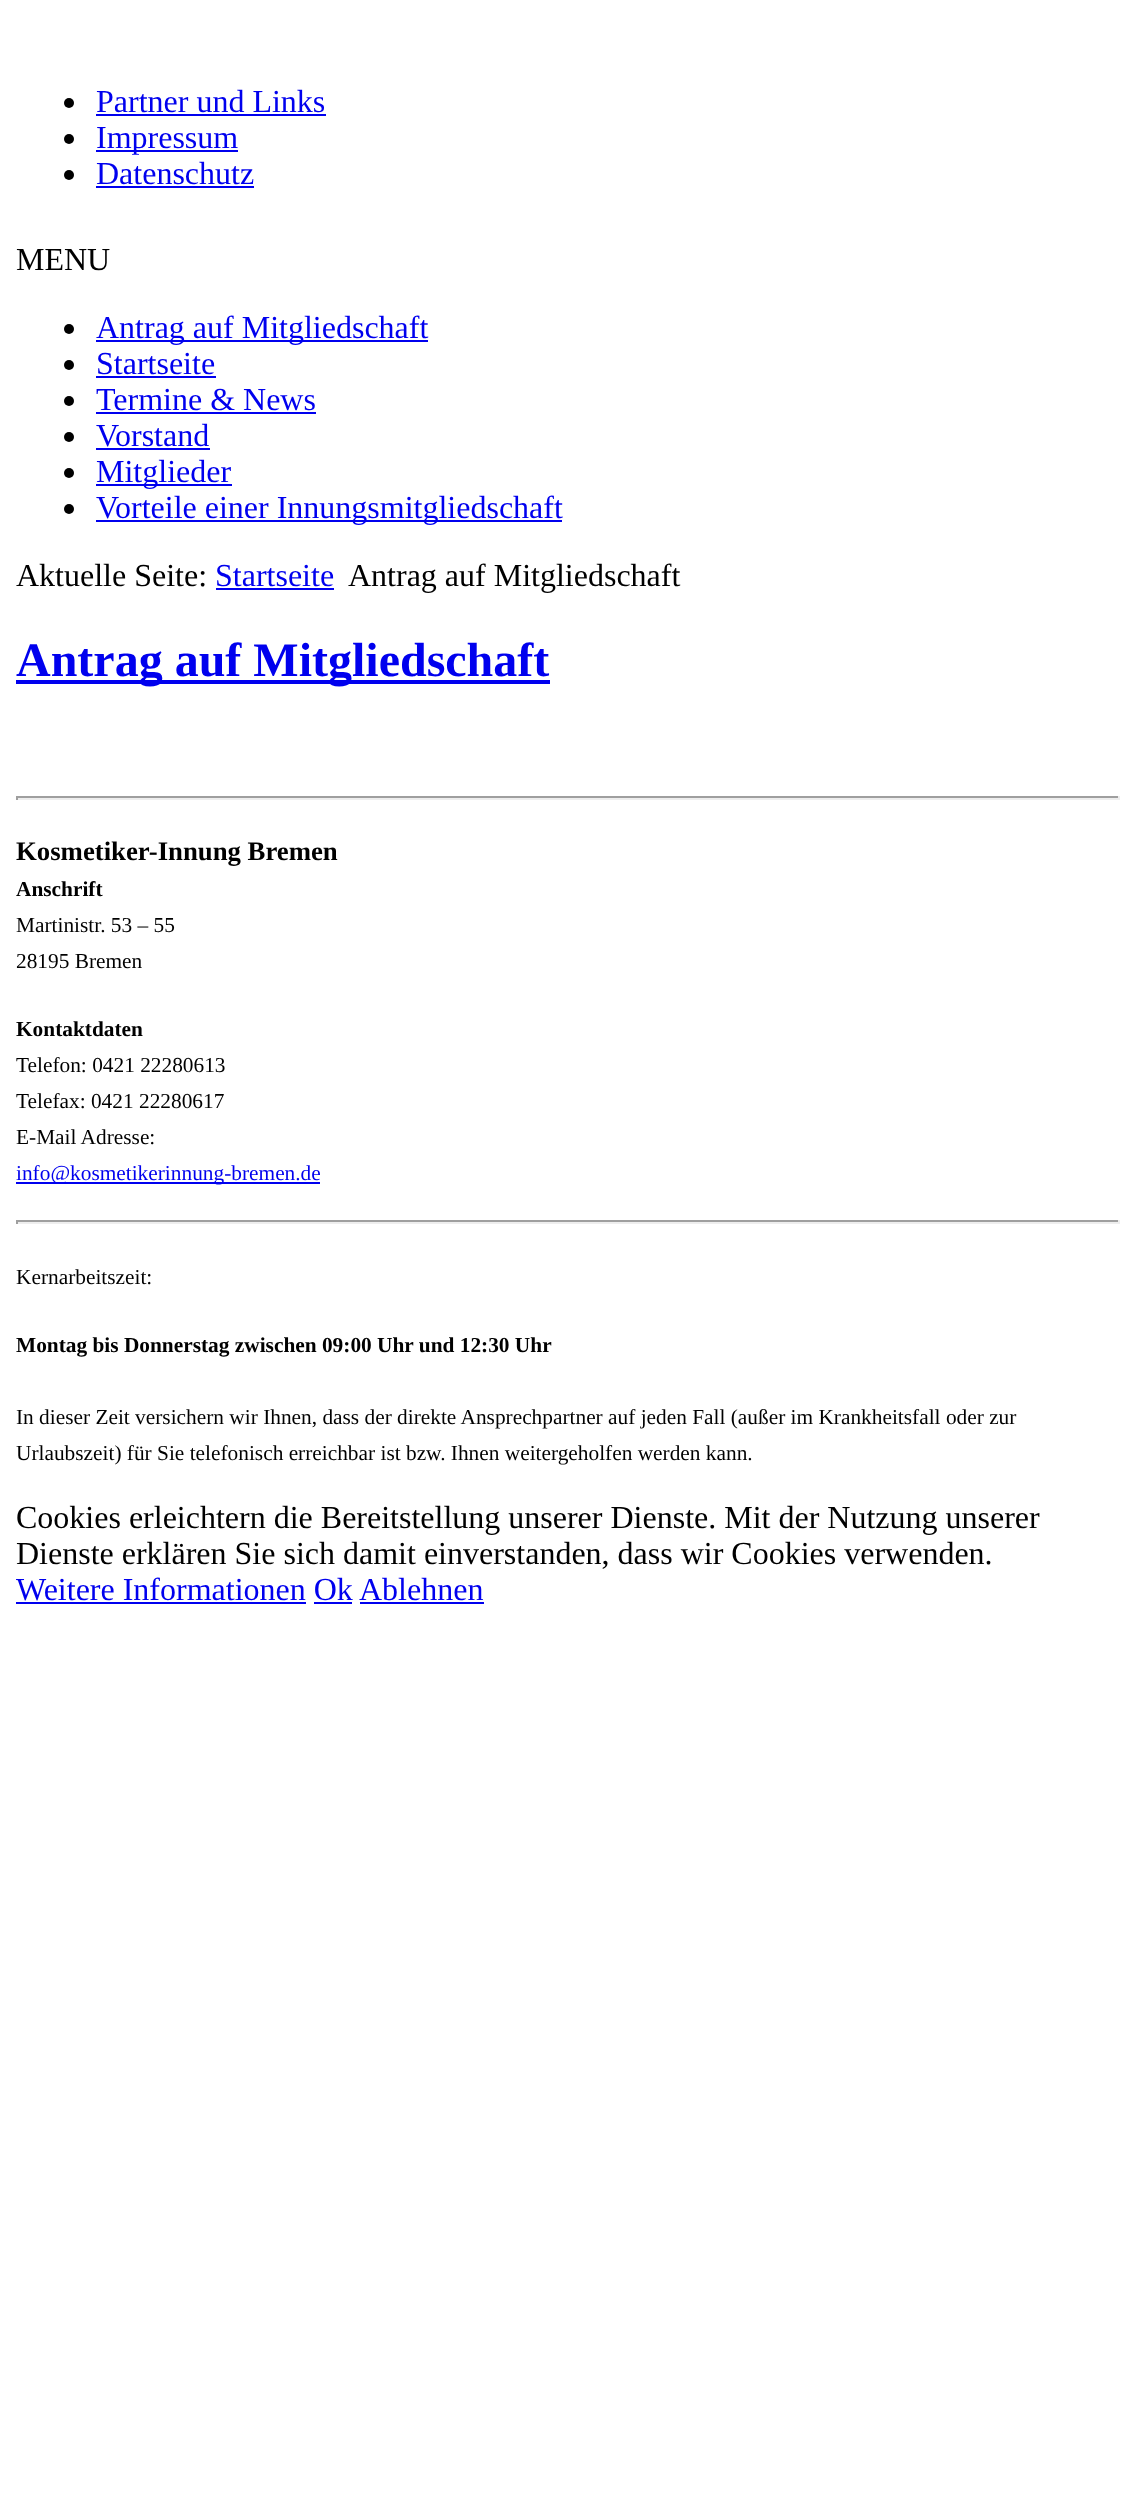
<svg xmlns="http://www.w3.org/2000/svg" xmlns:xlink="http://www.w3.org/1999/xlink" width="1135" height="2506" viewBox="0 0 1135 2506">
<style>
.cls-1{font:32px Liberation Serif;fill:#0000ee}
.cls-2{font:32px Liberation Serif;fill:#000000}
.cls-3{font:bold 48px Liberation Serif;fill:#0000ee}
.cls-4{font:bold 26.75px Liberation Serif;fill:#000000}
.cls-5{font:bold 21.35px Liberation Serif;fill:#000000}
.cls-6{font:21.35px Liberation Serif;fill:#000000}
.cls-7{font:21.35px Liberation Serif;fill:#0000ee}
</style>
<rect width="100%" height="100%" fill="#ffffff"/>
<circle fill="#000000" cx="69" cy="103" r="5"/>
<rect fill="#0000ee" x="96" y="114" width="230" height="2"/>
<circle fill="#000000" cx="69" cy="139" r="5"/>
<rect fill="#0000ee" x="96" y="150" width="142" height="2"/>
<circle fill="#000000" cx="69" cy="175" r="5"/>
<rect fill="#0000ee" x="96" y="186" width="158" height="2"/>
<circle fill="#000000" cx="69" cy="329" r="5"/>
<rect fill="#0000ee" x="96" y="340" width="332" height="2"/>
<circle fill="#000000" cx="69" cy="365" r="5"/>
<rect fill="#0000ee" x="96" y="376" width="120" height="2"/>
<circle fill="#000000" cx="69" cy="401" r="5"/>
<rect fill="#0000ee" x="96" y="412" width="220" height="2"/>
<circle fill="#000000" cx="69" cy="437" r="5"/>
<rect fill="#0000ee" x="96" y="448" width="114" height="2"/>
<circle fill="#000000" cx="69" cy="473" r="5"/>
<rect fill="#0000ee" x="96" y="484" width="136" height="2"/>
<circle fill="#000000" cx="69" cy="509" r="5"/>
<rect fill="#0000ee" x="96" y="520" width="466" height="2"/>
<rect fill="#0000ee" x="216" y="588" width="118" height="2"/>
<rect fill="#0000ee" x="16" y="680" width="534" height="4"/>
<rect fill="#9f9f9f" x="16" y="796" width="1104" height="2"/>
<rect fill="#eeeeee" x="1118" y="796" width="2" height="4"/>
<rect fill="#eeeeee" x="16" y="798" width="1104" height="2"/>
<rect fill="#9f9f9f" x="16" y="796" width="2" height="4"/>
<rect fill="#0000ee" x="16" y="1182" width="304" height="2"/>
<rect fill="#9f9f9f" x="16" y="1220" width="1104" height="2"/>
<rect fill="#eeeeee" x="1118" y="1220" width="2" height="4"/>
<rect fill="#eeeeee" x="16" y="1222" width="1104" height="2"/>
<rect fill="#9f9f9f" x="16" y="1220" width="2" height="4"/>
<rect fill="#0000ee" x="16" y="1602" width="290" height="2"/>
<rect fill="#0000ee" x="360" y="1602" width="124" height="2"/>
<rect fill="#0000ee" x="314" y="1602" width="38" height="2"/>
<text class="cls-1"><tspan x="96" y="112">Partner und Links</tspan><tspan x="96" y="148">Impressum</tspan><tspan x="96" y="184">Datenschutz</tspan></text>
<text class="cls-2" x="16" y="270">MENU</text>
<text class="cls-1"><tspan x="96" y="338">Antrag auf Mitgliedschaft</tspan><tspan x="96" y="374">Startseite</tspan><tspan x="96" y="410">Termine &amp; News</tspan><tspan x="96" y="446">Vorstand</tspan><tspan x="96" y="482">Mitglieder</tspan><tspan x="96" y="518">Vorteile einer Innungsmitgliedschaft</tspan></text>
<text class="cls-2" x="16" y="586">Aktuelle Seite:</text>
<text class="cls-1" x="215" y="586">Startseite</text>
<text class="cls-2" x="348" y="586">Antrag auf Mitgliedschaft</text>
<text class="cls-3" x="16" y="676">Antrag auf Mitgliedschaft</text>
<text class="cls-4" x="16" y="860">Kosmetiker-Innung Bremen</text>
<text class="cls-5" x="16" y="896">Anschrift</text>
<text class="cls-6"><tspan x="16" y="932">Martinistr. 53 – 55</tspan><tspan x="16" y="968">28195 Bremen</tspan></text>
<text class="cls-5" x="16" y="1036">Kontaktdaten</text>
<text class="cls-6"><tspan x="16" y="1072">Telefon: 0421 22280613</tspan><tspan x="16" y="1108">Telefax: 0421 22280617</tspan><tspan x="16" y="1144">E-Mail Adresse:</tspan></text>
<text class="cls-7" x="16" y="1180">info@kosmetikerinnung-bremen.de</text>
<text class="cls-6" x="16" y="1284">Kernarbeitszeit:</text>
<text class="cls-5" x="16" y="1352">Montag bis Donnerstag zwischen 09:00 Uhr und 12:30 Uhr</text>
<text class="cls-6"><tspan x="16" y="1424">In dieser Zeit versichern wir Ihnen, dass der direkte Ansprechpartner auf jeden Fall (außer im Krankheitsfall oder zur</tspan><tspan x="16" y="1460">Urlaubszeit) für Sie telefonisch erreichbar ist bzw. Ihnen weitergeholfen werden kann.</tspan></text>
<text class="cls-2"><tspan x="16" y="1528">Cookies erleichtern die Bereitstellung unserer Dienste. Mit der Nutzung unserer</tspan><tspan x="16" y="1564">Dienste erklären Sie sich damit einverstanden, dass wir Cookies verwenden.</tspan></text>
<text class="cls-1" x="16" y="1600">Weitere Informationen Ok</text>
<text class="cls-1" x="359" y="1600">Ablehnen</text>
</svg>
